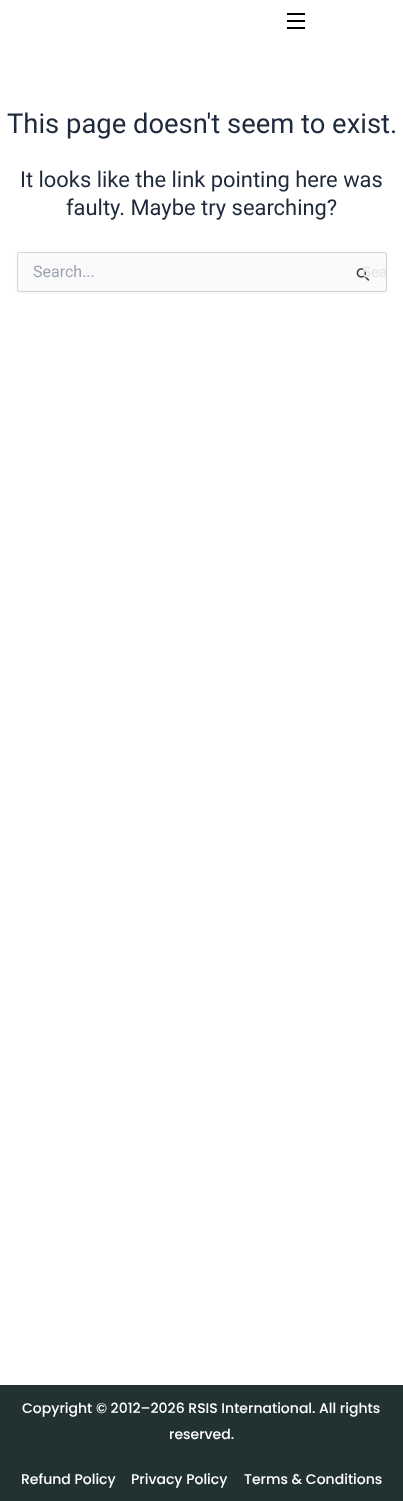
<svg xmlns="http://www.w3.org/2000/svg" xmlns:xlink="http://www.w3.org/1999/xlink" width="403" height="1501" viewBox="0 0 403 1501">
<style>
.cls-1{font:27.4px Roboto;fill:#1e293b}
.cls-2{font:21.9px Roboto;fill:#1e293b}
.cls-3{font:16px Roboto;fill:#9ca3af}
.cls-4{font:500 15px Roboto;fill:#e7e7e8}
.cls-5{font:500 14px Poppins;fill:#ffffff}
</style>
<rect width="100%" height="100%" fill="#ffffff"/>
<rect fill="#000000" x="287" y="13" width="18" height="2"/>
<rect fill="#000000" x="287" y="20" width="18" height="2"/>
<rect fill="#000000" x="287" y="27" width="18" height="2"/>
<rect fill="#000000" fill-opacity="0.05" filter="blur(1px)" x="17" y="253" width="370" height="40" rx="2"/>
<rect fill="#fafafa" stroke="#d1d5db" x="17.5" y="252.5" width="369" height="39" rx="1.5"/>
<image xlink:href="image0.png" x="356" y="268" width="14" height="13"/>
<rect fill="#223132" x="0" y="1385" width="403" height="116"/>
<text class="cls-1" x="7" y="133">This page doesn't seem to exist.</text>
<text class="cls-2" x="20" y="187">It looks like the link pointing here was</text>
<text class="cls-2" x="66" y="215">faulty. Maybe try searching?</text>
<text class="cls-3" x="33" y="277">Search...</text>
<text class="cls-4" x="362" y="277">Sea</text>
<text class="cls-5" x="22" y="1413">Copyright © 2012–2026 RSIS International. All rights</text>
<text class="cls-5" x="169" y="1439">reserved.</text>
<text class="cls-5" x="21" y="1484">Refund Policy</text>
<text class="cls-5" x="131" y="1484">Privacy Policy</text>
<text class="cls-5" x="244" y="1484">Terms &amp; Conditions</text>
</svg>
